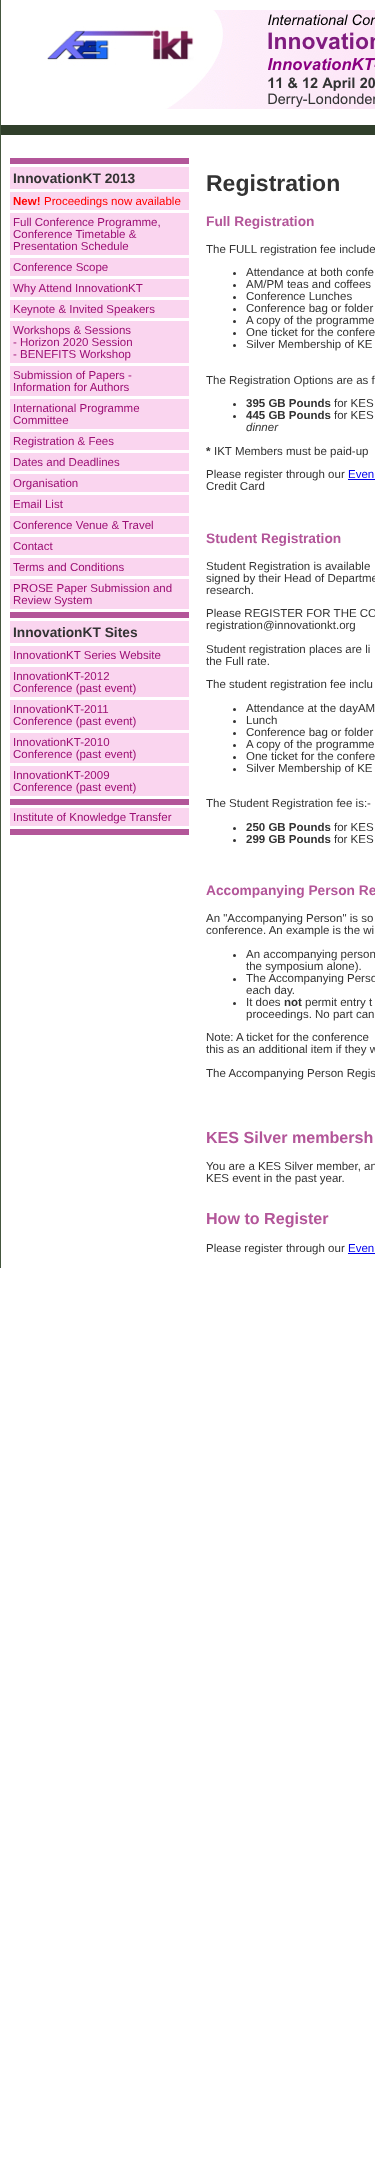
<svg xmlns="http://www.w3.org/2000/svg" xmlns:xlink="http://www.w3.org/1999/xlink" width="375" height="2157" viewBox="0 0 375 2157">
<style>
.cls-1{font:bold 13.75px Liberation Sans;fill:#333333}
.cls-2{font:bold 11.5px Liberation Sans;fill:#ff0000}
.cls-3{font:11.5px Liberation Sans;fill:#ff0000}
.cls-4{font:11.5px Liberation Sans;fill:#9c0f74}
.cls-5{font:bold 23px Liberation Sans;fill:#333333}
.cls-6{font:bold 13.75px Liberation Sans;fill:#b35699}
.cls-7{font:11.5px Liberation Sans;fill:#333333}
.cls-8{font:bold 11.5px Liberation Sans;fill:#333333}
.cls-9{font:italic 11.5px Liberation Sans;fill:#333333}
.cls-10{font:11.5px Liberation Sans;fill:#0000ee}
.cls-11{font:bold 16.1px Liberation Sans;fill:#b35699}
</style>
<rect width="100%" height="100%" fill="#ffffff"/>
<rect fill="#44563e" x="0" y="0" width="1" height="1268"/>
<image xlink:href="image0.png" x="47" y="10" width="328" height="99"/>
<rect fill="#303f2b" x="1" y="125" width="374" height="10"/>
<rect fill="#b35699" x="10" y="158" width="179" height="6"/>
<rect fill="#fad5ef" x="10" y="167" width="179" height="22"/>
<rect fill="#fad5ef" x="10" y="192" width="179" height="18"/>
<rect fill="#fad5ef" x="10" y="213" width="179" height="42"/>
<rect fill="#fad5ef" x="10" y="258" width="179" height="18"/>
<rect fill="#fad5ef" x="10" y="279" width="179" height="18"/>
<rect fill="#fad5ef" x="10" y="300" width="179" height="18"/>
<rect fill="#fad5ef" x="10" y="321" width="179" height="42"/>
<rect fill="#fad5ef" x="10" y="366" width="179" height="30"/>
<rect fill="#fad5ef" x="10" y="399" width="179" height="30"/>
<rect fill="#fad5ef" x="10" y="432" width="179" height="18"/>
<rect fill="#fad5ef" x="10" y="453" width="179" height="18"/>
<rect fill="#fad5ef" x="10" y="474" width="179" height="18"/>
<rect fill="#fad5ef" x="10" y="495" width="179" height="18"/>
<rect fill="#fad5ef" x="10" y="516" width="179" height="18"/>
<rect fill="#fad5ef" x="10" y="537" width="179" height="18"/>
<rect fill="#fad5ef" x="10" y="558" width="179" height="18"/>
<rect fill="#fad5ef" x="10" y="579" width="179" height="30"/>
<rect fill="#b35699" x="10" y="612" width="179" height="6"/>
<rect fill="#fad5ef" x="10" y="621" width="179" height="22"/>
<rect fill="#fad5ef" x="10" y="646" width="179" height="18"/>
<rect fill="#fad5ef" x="10" y="667" width="179" height="30"/>
<rect fill="#fad5ef" x="10" y="700" width="179" height="30"/>
<rect fill="#fad5ef" x="10" y="733" width="179" height="30"/>
<rect fill="#fad5ef" x="10" y="766" width="179" height="30"/>
<rect fill="#b35699" x="10" y="799" width="179" height="6"/>
<rect fill="#fad5ef" x="10" y="808" width="179" height="18"/>
<rect fill="#b35699" x="10" y="829" width="179" height="6"/>
<circle fill="#333333" cx="234.5" cy="273.5" r="1.5"/>
<circle fill="#333333" cx="234.5" cy="285.5" r="1.5"/>
<circle fill="#333333" cx="234.5" cy="297.5" r="1.5"/>
<circle fill="#333333" cx="234.5" cy="309.5" r="1.5"/>
<circle fill="#333333" cx="234.5" cy="321.5" r="1.5"/>
<circle fill="#333333" cx="234.5" cy="333.5" r="1.5"/>
<circle fill="#333333" cx="234.5" cy="345.5" r="1.5"/>
<circle fill="#333333" cx="234.5" cy="404.5" r="1.5"/>
<circle fill="#333333" cx="234.5" cy="416.5" r="1.5"/>
<rect fill="#0000ee" x="348" y="479" width="27" height="1"/>
<circle fill="#333333" cx="234.5" cy="709.5" r="1.5"/>
<circle fill="#333333" cx="234.5" cy="721.5" r="1.5"/>
<circle fill="#333333" cx="234.5" cy="733.5" r="1.5"/>
<circle fill="#333333" cx="234.5" cy="745.5" r="1.5"/>
<circle fill="#333333" cx="234.5" cy="757.5" r="1.5"/>
<circle fill="#333333" cx="234.5" cy="769.5" r="1.5"/>
<circle fill="#333333" cx="234.5" cy="828.5" r="1.5"/>
<circle fill="#333333" cx="234.5" cy="840.5" r="1.5"/>
<circle fill="#333333" cx="234.5" cy="955.5" r="1.5"/>
<circle fill="#333333" cx="234.5" cy="979.5" r="1.5"/>
<circle fill="#333333" cx="234.5" cy="1003.5" r="1.5"/>
<rect fill="#0000ee" x="348" y="1253" width="27" height="1"/>
<text class="cls-1" x="13" y="183">InnovationKT 2013</text>
<text class="cls-2" x="13" y="205">New!</text>
<text class="cls-3" x="44" y="205">Proceedings now available</text>
<text class="cls-4"><tspan x="13" y="226">Full Conference Programme,</tspan><tspan x="13" y="238">Conference Timetable &amp;</tspan><tspan x="13" y="250">Presentation Schedule</tspan><tspan x="13" y="271">Conference Scope</tspan><tspan x="13" y="292">Why Attend InnovationKT</tspan><tspan x="13" y="313">Keynote &amp; Invited Speakers</tspan><tspan x="13" y="334">Workshops &amp; Sessions</tspan><tspan x="13" y="346">- Horizon 2020 Session</tspan><tspan x="13" y="358">- BENEFITS Workshop</tspan><tspan x="13" y="379">Submission of Papers -</tspan><tspan x="13" y="391">Information for Authors</tspan><tspan x="13" y="412">International Programme</tspan><tspan x="13" y="424">Committee</tspan><tspan x="13" y="445">Registration &amp; Fees</tspan><tspan x="13" y="466">Dates and Deadlines</tspan><tspan x="13" y="487">Organisation</tspan><tspan x="13" y="508">Email List</tspan><tspan x="13" y="529">Conference Venue &amp; Travel</tspan><tspan x="13" y="550">Contact</tspan><tspan x="13" y="571">Terms and Conditions</tspan><tspan x="13" y="592">PROSE Paper Submission and</tspan><tspan x="13" y="604">Review System</tspan></text>
<text class="cls-1" x="13" y="637">InnovationKT Sites</text>
<text class="cls-4"><tspan x="13" y="659">InnovationKT Series Website</tspan><tspan x="13" y="680">InnovationKT-2012</tspan><tspan x="13" y="692">Conference (past event)</tspan><tspan x="13" y="713">InnovationKT-2011</tspan><tspan x="13" y="725">Conference (past event)</tspan><tspan x="13" y="746">InnovationKT-2010</tspan><tspan x="13" y="758">Conference (past event)</tspan><tspan x="13" y="779">InnovationKT-2009</tspan><tspan x="13" y="791">Conference (past event)</tspan></text>
<text class="cls-4" x="13" y="821">Institute of Knowledge Transfer</text>
<text class="cls-5" x="206" y="191">Registration</text>
<text class="cls-6" x="206" y="226">Full Registration</text>
<text class="cls-7" x="206" y="253">The FULL registration fee include</text>
<text class="cls-7"><tspan x="246" y="276">Attendance at both confe</tspan><tspan x="246" y="288">AM/PM teas and coffees</tspan><tspan x="246" y="300">Conference Lunches</tspan><tspan x="246" y="312">Conference bag or folder</tspan><tspan x="246" y="324">A copy of the programme</tspan><tspan x="246" y="336">One ticket for the confere</tspan><tspan x="246" y="348">Silver Membership of KE</tspan></text>
<text class="cls-7" x="206" y="384">The Registration Options are as f</text>
<text class="cls-8" x="246" y="407">395 GB Pounds</text>
<text class="cls-7" x="334" y="407">for KES</text>
<text class="cls-8" x="246" y="419">445 GB Pounds</text>
<text class="cls-7" x="334" y="419">for KES</text>
<text class="cls-9" x="246" y="431">dinner</text>
<text class="cls-8" x="206" y="455">*</text>
<text class="cls-7" x="214" y="455">IKT Members must be paid-up</text>
<text class="cls-7" x="206" y="478">Please register through our</text>
<text class="cls-10" x="348" y="478">Even</text>
<text class="cls-7" x="206" y="490">Credit Card</text>
<text class="cls-6" x="206" y="543">Student Registration</text>
<text class="cls-7"><tspan x="206" y="570">Student Registration is available</tspan><tspan x="206" y="582">signed by their Head of Departme</tspan><tspan x="206" y="594">research.</tspan></text>
<text class="cls-7"><tspan x="206" y="617">Please REGISTER FOR THE CO</tspan><tspan x="206" y="629">registration@innovationkt.org</tspan></text>
<text class="cls-7"><tspan x="206" y="653">Student registration places are li</tspan><tspan x="206" y="665">the Full rate.</tspan></text>
<text class="cls-7" x="206" y="688">The student registration fee inclu</text>
<text class="cls-7"><tspan x="246" y="712">Attendance at the dayAM</tspan><tspan x="246" y="724">Lunch</tspan><tspan x="246" y="736">Conference bag or folder</tspan><tspan x="246" y="748">A copy of the programme</tspan><tspan x="246" y="760">One ticket for the confere</tspan><tspan x="246" y="772">Silver Membership of KE</tspan></text>
<text class="cls-7" x="206" y="807">The Student Registration fee is:-</text>
<text class="cls-8" x="246" y="831">250 GB Pounds</text>
<text class="cls-7" x="334" y="831">for KES</text>
<text class="cls-8" x="246" y="843">299 GB Pounds</text>
<text class="cls-7" x="334" y="843">for KES</text>
<text class="cls-6" x="206" y="895">Accompanying Person Re</text>
<text class="cls-7"><tspan x="206" y="922">An "Accompanying Person" is so</tspan><tspan x="206" y="934">conference. An example is the wi</tspan></text>
<text class="cls-7"><tspan x="246" y="958">An accompanying person</tspan><tspan x="246" y="970">the symposium alone).</tspan><tspan x="246" y="982">The Accompanying Perso</tspan><tspan x="246" y="994">each day.</tspan><tspan x="246" y="1006">It does</tspan></text>
<text class="cls-8" x="284" y="1006">not</text>
<text class="cls-7" x="305" y="1006">permit entry t</text>
<text class="cls-7" x="246" y="1018">proceedings. No part can</text>
<text class="cls-7"><tspan x="206" y="1041">Note: A ticket for the conference</tspan><tspan x="206" y="1053">this as an additional item if they w</tspan></text>
<text class="cls-7" x="206" y="1077">The Accompanying Person Regis</text>
<text class="cls-11" x="206" y="1143">KES Silver membersh</text>
<text class="cls-7"><tspan x="206" y="1170">You are a KES Silver member, an</tspan><tspan x="206" y="1182">KES event in the past year.</tspan></text>
<text class="cls-11" x="206" y="1224">How to Register</text>
<text class="cls-7" x="206" y="1252">Please register through our</text>
<text class="cls-10" x="348" y="1252">Even</text>
</svg>
